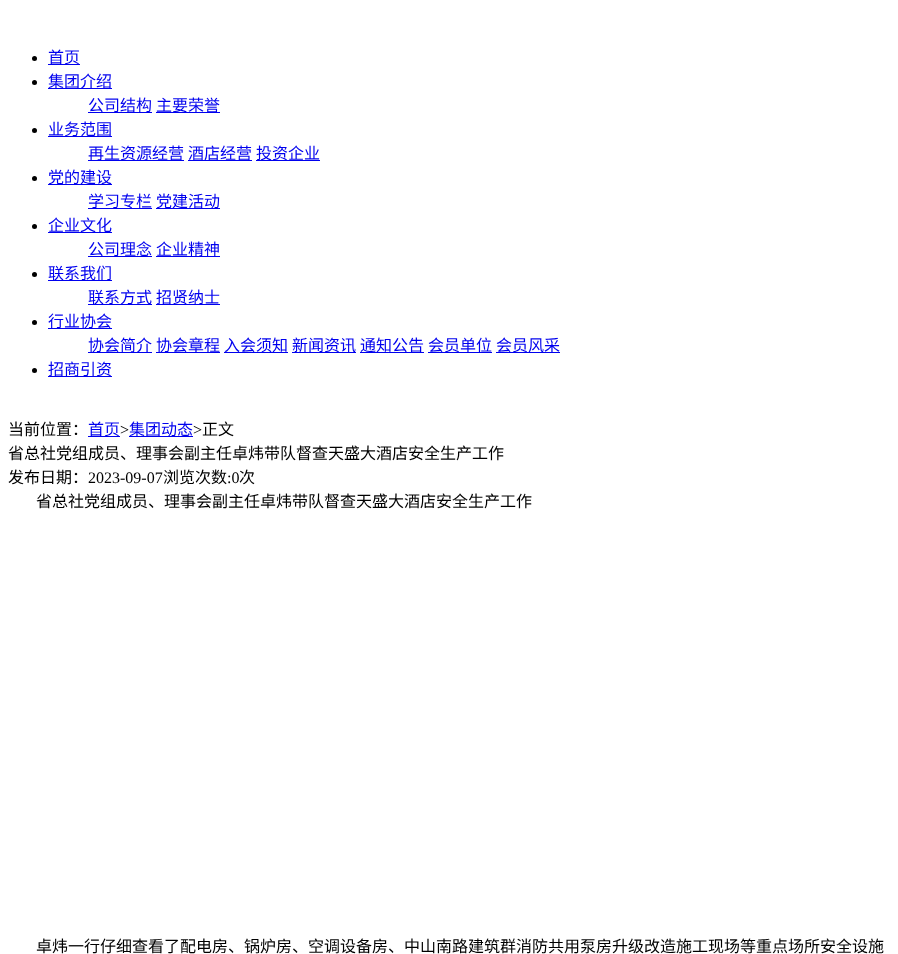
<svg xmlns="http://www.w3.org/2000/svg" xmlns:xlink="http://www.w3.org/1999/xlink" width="898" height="954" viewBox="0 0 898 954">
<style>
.cls-1{font:16px Noto Sans CJK SC;fill:#0000ee}
.cls-2{font:16px Noto Sans CJK SC;fill:#000000}
.cls-3{font:16px Liberation Serif;fill:#000000}
</style>
<rect width="100%" height="100%" fill="#ffffff"/>
<circle fill="#000000" cx="34.5" cy="58.5" r="2.5"/>
<rect fill="#0000ee" x="48" y="64" width="32" height="1"/>
<circle fill="#000000" cx="34.5" cy="82.5" r="2.5"/>
<rect fill="#0000ee" x="48" y="88" width="64" height="1"/>
<rect fill="#0000ee" x="88" y="112" width="64" height="1"/>
<rect fill="#0000ee" x="156" y="112" width="64" height="1"/>
<circle fill="#000000" cx="34.5" cy="130.5" r="2.5"/>
<rect fill="#0000ee" x="48" y="136" width="64" height="1"/>
<rect fill="#0000ee" x="88" y="160" width="96" height="1"/>
<rect fill="#0000ee" x="188" y="160" width="64" height="1"/>
<rect fill="#0000ee" x="256" y="160" width="64" height="1"/>
<circle fill="#000000" cx="34.5" cy="178.5" r="2.5"/>
<rect fill="#0000ee" x="48" y="184" width="64" height="1"/>
<rect fill="#0000ee" x="88" y="208" width="64" height="1"/>
<rect fill="#0000ee" x="156" y="208" width="64" height="1"/>
<circle fill="#000000" cx="34.5" cy="226.5" r="2.5"/>
<rect fill="#0000ee" x="48" y="232" width="64" height="1"/>
<rect fill="#0000ee" x="88" y="256" width="64" height="1"/>
<rect fill="#0000ee" x="156" y="256" width="64" height="1"/>
<circle fill="#000000" cx="34.5" cy="274.5" r="2.5"/>
<rect fill="#0000ee" x="48" y="280" width="64" height="1"/>
<rect fill="#0000ee" x="88" y="304" width="64" height="1"/>
<rect fill="#0000ee" x="156" y="304" width="64" height="1"/>
<circle fill="#000000" cx="34.5" cy="322.5" r="2.5"/>
<rect fill="#0000ee" x="48" y="328" width="64" height="1"/>
<rect fill="#0000ee" x="88" y="352" width="64" height="1"/>
<rect fill="#0000ee" x="156" y="352" width="64" height="1"/>
<rect fill="#0000ee" x="224" y="352" width="64" height="1"/>
<rect fill="#0000ee" x="292" y="352" width="64" height="1"/>
<rect fill="#0000ee" x="360" y="352" width="64" height="1"/>
<rect fill="#0000ee" x="428" y="352" width="64" height="1"/>
<rect fill="#0000ee" x="496" y="352" width="64" height="1"/>
<circle fill="#000000" cx="34.5" cy="370.5" r="2.5"/>
<rect fill="#0000ee" x="48" y="376" width="64" height="1"/>
<rect fill="#0000ee" x="88" y="436" width="32" height="1"/>
<rect fill="#0000ee" x="129" y="436" width="64" height="1"/>
<text class="cls-1"><tspan x="48" y="63">首页</tspan><tspan x="48" y="87">集团介绍</tspan></text>
<text class="cls-1" x="88" y="111">公司结构</text>
<text class="cls-1" x="156" y="111">主要荣誉</text>
<text class="cls-1" x="48" y="135">业务范围</text>
<text class="cls-1" x="88" y="159">再生资源经营</text>
<text class="cls-1" x="188" y="159">酒店经营</text>
<text class="cls-1" x="256" y="159">投资企业</text>
<text class="cls-1" x="48" y="183">党的建设</text>
<text class="cls-1" x="88" y="207">学习专栏</text>
<text class="cls-1" x="156" y="207">党建活动</text>
<text class="cls-1" x="48" y="231">企业文化</text>
<text class="cls-1" x="88" y="255">公司理念</text>
<text class="cls-1" x="156" y="255">企业精神</text>
<text class="cls-1" x="48" y="279">联系我们</text>
<text class="cls-1" x="88" y="303">联系方式</text>
<text class="cls-1" x="156" y="303">招贤纳士</text>
<text class="cls-1" x="48" y="327">行业协会</text>
<text class="cls-1" x="88" y="351">协会简介</text>
<text class="cls-1" x="156" y="351">协会章程</text>
<text class="cls-1" x="224" y="351">入会须知</text>
<text class="cls-1" x="292" y="351">新闻资讯</text>
<text class="cls-1" x="360" y="351">通知公告</text>
<text class="cls-1" x="428" y="351">会员单位</text>
<text class="cls-1" x="496" y="351">会员风采</text>
<text class="cls-1" x="48" y="375">招商引资</text>
<text class="cls-2" x="8" y="435">当前位置：</text>
<text class="cls-1" x="88" y="435">首页</text>
<text class="cls-3" x="120" y="435">&gt;</text>
<text class="cls-1" x="129" y="435">集团动态</text>
<text class="cls-3" x="193" y="435">&gt;</text>
<text class="cls-2" x="202" y="435">正文</text>
<text class="cls-2"><tspan x="8" y="459">省总社党组成员、理事会副主任卓炜带队督查天盛大酒店安全生产工作</tspan><tspan x="8" y="483">发布日期：</tspan></text>
<text class="cls-3" x="88" y="483">2023-09-07</text>
<text class="cls-2" x="163" y="483">浏览次数</text>
<text class="cls-3" x="227" y="483">:0</text>
<text class="cls-2" x="239" y="483">次</text>
<text class="cls-2" x="36" y="507">省总社党组成员、理事会副主任卓炜带队督查天盛大酒店安全生产工作</text>
<text class="cls-2" x="36" y="952">卓炜一行仔细查看了配电房、锅炉房、空调设备房、中山南路建筑群消防共用泵房升级改造施工现场等重点场所安全设施</text>
</svg>
